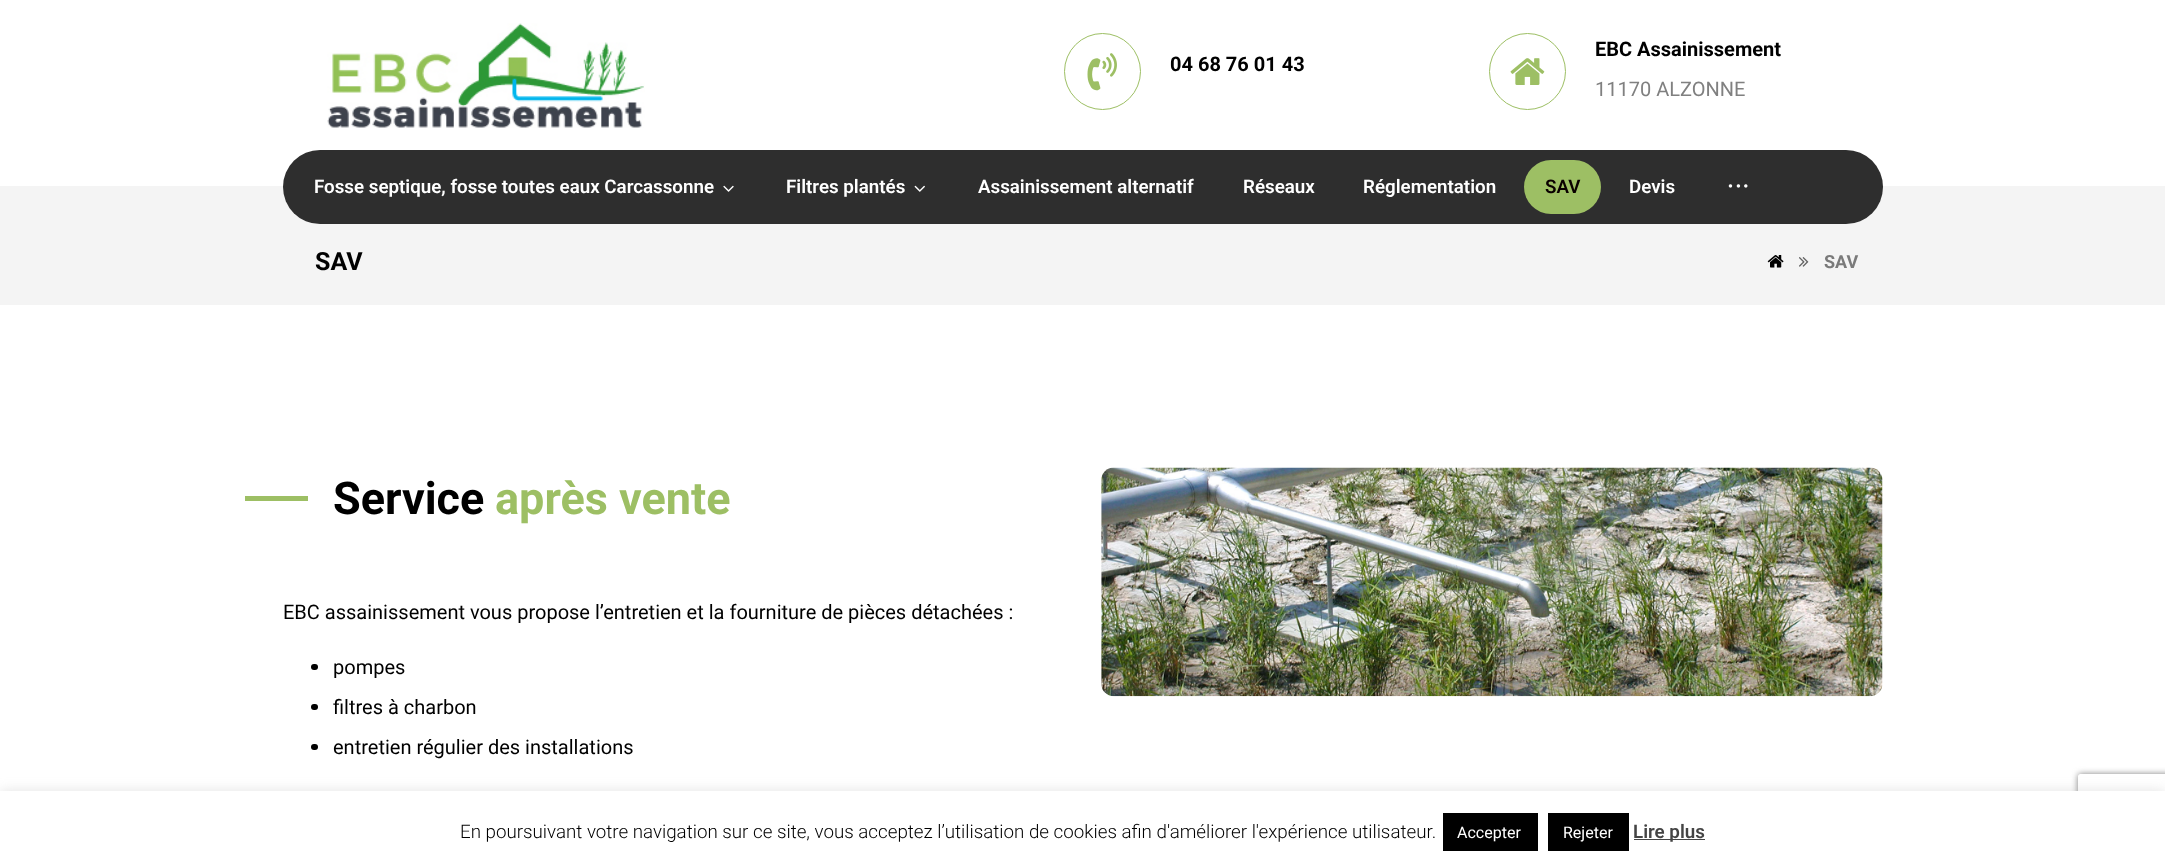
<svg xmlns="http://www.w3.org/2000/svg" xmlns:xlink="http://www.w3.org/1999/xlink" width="2165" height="866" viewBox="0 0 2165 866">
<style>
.cls-1{font:bold 20px Roboto;fill:#000000}
.cls-2{font:20px Roboto;fill:#808080}
.cls-3{font:600 18.75px Roboto;fill:#ffffff}
.cls-4{font:600 18.75px Roboto;fill:#0a0000}
.cls-5{font:bold 25px Roboto;fill:#000000}
.cls-6{font:bold 18px Roboto;fill:#7a7a7a}
.cls-7{font:bold 45px Roboto;fill:#000000}
.cls-8{font:bold 45px Roboto;fill:#9dbf64}
.cls-9{font:20px Roboto;fill:#000000}
.cls-10{font:300 18.75px Roboto;fill:#000000}
.cls-11{font:16px Roboto;fill:#ffffff}
.cls-12{font:600 18.75px Roboto;fill:#444444}
</style>
<defs>
<clipPath id="clip1"><path d="M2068 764H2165V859H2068ZM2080.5 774H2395.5C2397 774 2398 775 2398 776.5V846.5C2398 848 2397 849 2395.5 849H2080.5C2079 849 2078 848 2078 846.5V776.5C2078 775 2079 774 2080.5 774Z" clip-rule="evenodd"/></clipPath>
</defs>
<rect width="100%" height="100%" fill="#ffffff"/>
<image xlink:href="image0.png" x="327" y="23" width="318" height="105"/>
<circle fill="none" stroke="#9dbf64" cx="1102.5" cy="71.5" r="38"/>
<image xlink:href="image1.png" x="1087" y="53" width="30" height="38"/>
<circle fill="none" stroke="#9dbf64" cx="1527.5" cy="71.5" r="38"/>
<image xlink:href="image2.png" x="1510" y="58" width="35" height="27"/>
<rect fill="#f4f4f4" x="0" y="186" width="2165" height="119"/>
<rect fill="#2e2e2e" x="283" y="150" width="1600" height="74" rx="37"/>
<image xlink:href="image3.png" x="723" y="185" width="11" height="7"/>
<image xlink:href="image4.png" x="914" y="185" width="11" height="7"/>
<rect fill="#9dbf64" x="1524" y="160" width="77" height="54" rx="27"/>
<image xlink:href="image5.png" x="1728" y="184" width="20" height="4"/>
<image xlink:href="image6.png" x="1767" y="255" width="17" height="13"/>
<image xlink:href="image7.png" x="1799" y="257" width="10" height="10"/>
<rect fill="#9dbf64" x="245" y="496" width="63" height="5"/>
<rect fill="#000000" x="311" y="664" width="7" height="6" rx="3"/>
<rect fill="#000000" x="311" y="704" width="7" height="6" rx="3"/>
<rect fill="#000000" x="311" y="744" width="7" height="6" rx="3"/>
<image xlink:href="image8.png" x="1101" y="467" width="782" height="230"/>
<rect fill="#acabab" fill-opacity="0.3" filter="blur(6px)" x="0" y="790" width="2165" height="75"/>
<g clip-path="url(#clip1)">
<rect fill="#808080" filter="blur(3px)" x="2078" y="774" width="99" height="75" rx="2.5"/>
</g>
<rect fill="#ffffff" x="0" y="791" width="2165" height="75"/>
<rect fill="#000000" x="1443" y="813" width="95" height="38"/>
<rect fill="#000000" x="1548" y="813" width="81" height="38"/>
<rect fill="#444444" x="1634" y="839" width="71" height="1"/>
<text class="cls-1" x="1170" y="71">04 68 76 01 43</text>
<text class="cls-1" x="1595" y="56">EBC Assainissement</text>
<text class="cls-2" x="1595" y="96">11170 ALZONNE</text>
<text class="cls-3" x="314" y="193">Fosse septique, fosse toutes eaux Carcassonne</text>
<text class="cls-3" x="786" y="193">Filtres plantés</text>
<text class="cls-3" x="978" y="193">Assainissement alternatif</text>
<text class="cls-3" x="1243" y="193">Réseaux</text>
<text class="cls-3" x="1363" y="193">Réglementation</text>
<text class="cls-4" x="1545" y="193">SAV</text>
<text class="cls-3" x="1629" y="193">Devis</text>
<text class="cls-5" x="315" y="270">SAV</text>
<text class="cls-6" x="1824" y="268">SAV</text>
<text class="cls-7" x="333" y="514">Service</text>
<text class="cls-8" x="495" y="514">après vente</text>
<text class="cls-9" x="283" y="619">EBC assainissement vous propose l’entretien et la fourniture de pièces détachées :</text>
<text class="cls-9" x="333" y="674">pompes</text>
<text class="cls-9" x="333" y="714">filtres à charbon</text>
<text class="cls-9" x="333" y="754">entretien régulier des installations</text>
<text class="cls-10" x="460" y="838">En poursuivant votre navigation sur ce site, vous acceptez l’utilisation de cookies afin d'améliorer l'expérience utilisateur.</text>
<text class="cls-11" x="1457" y="838">Accepter</text>
<text class="cls-11" x="1563" y="838">Rejeter</text>
<text class="cls-12" x="1633" y="838">Lire plus</text>
</svg>
